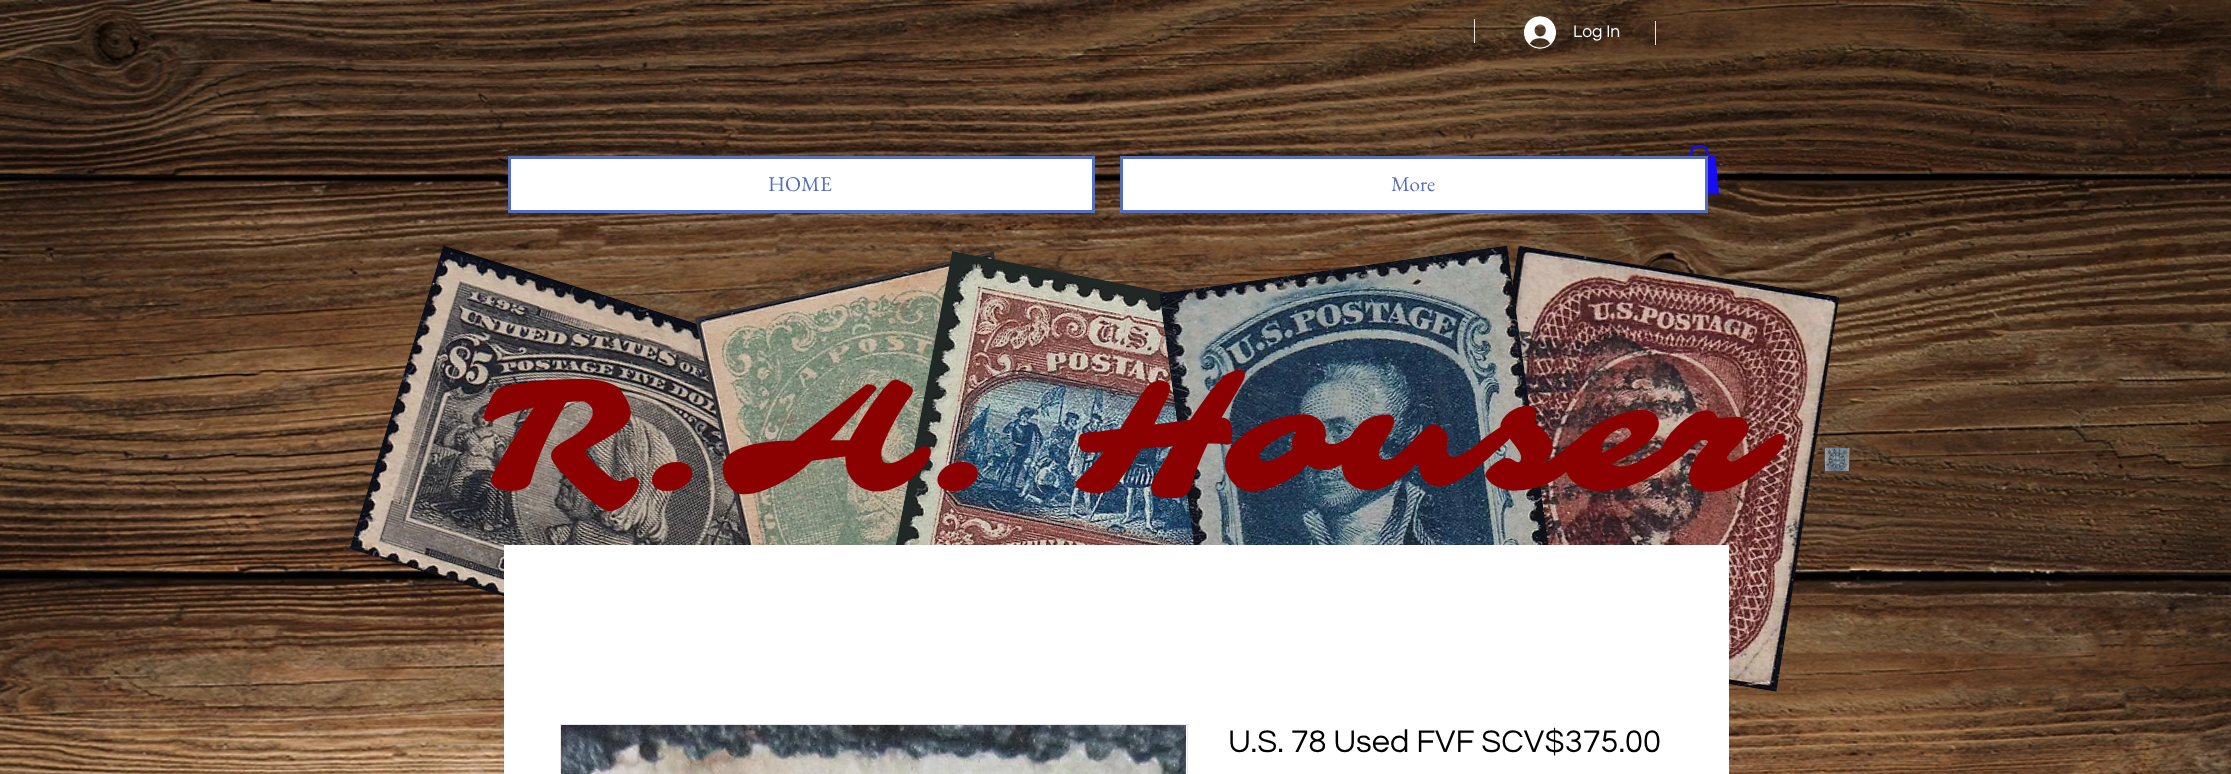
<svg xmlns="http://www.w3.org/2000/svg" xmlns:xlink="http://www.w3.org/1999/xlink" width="2231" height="774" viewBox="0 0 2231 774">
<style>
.cls-1{font:17.5px Questrial;fill:#ffffff}
.cls-2{font:21px EB Garamond;fill:#566fb8}
.cls-3{font:163.75px Sarina;fill:#8b0000}
.cls-4{font:32.5px Questrial;fill:#000000}
</style>
<rect width="100%" height="100%" fill="#ffffff"/>
<image xlink:href="image0.png" x="0" y="0" width="2231" height="774"/>
<rect fill="#e8e6e6" x="1474" y="19" width="1" height="24"/>
<image xlink:href="image1.png" x="1524" y="16" width="32" height="33"/>
<rect fill="#e8e6e6" x="1655" y="21" width="1" height="24"/>
<rect fill="#ffffff" stroke="#566fb8" stroke-width="3" x="509.5" y="157.5" width="584" height="54"/>
<image xlink:href="image2.png" x="1683" y="145" width="36" height="50"/>
<rect fill="#ffffff" stroke="#566fb8" stroke-width="3" x="1121.5" y="157.5" width="585" height="54"/>
<image xlink:href="image3.png" x="350" y="246" width="396" height="351"/>
<image xlink:href="image4.png" x="695" y="252" width="301" height="293"/>
<image xlink:href="image5.png" x="895" y="251" width="299" height="294"/>
<image xlink:href="image8.png" x="1824" y="447" width="26" height="25"/>
<image xlink:href="image7.png" x="1512" y="246" width="328" height="446"/>
<image xlink:href="image6.png" x="1159" y="245" width="390" height="300"/>
<rect fill="#ffffff" x="504" y="545" width="1225" height="229"/>
<rect fill="none" stroke="#e8e6e6" x="560.5" y="724.5" width="627" height="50"/>
<image xlink:href="image9.png" x="561" y="725" width="625" height="49"/>
<text class="cls-1" x="1573" y="37">Log In</text>
<text class="cls-2" x="768" y="191">HOME</text>
<text class="cls-2" x="1391" y="191">More</text>
<text class="cls-3" x="479" y="489">R.A. Houser</text>
<text class="cls-4" x="1228" y="752">U.S. 78 Used FVF SCV$375.00</text>
</svg>
